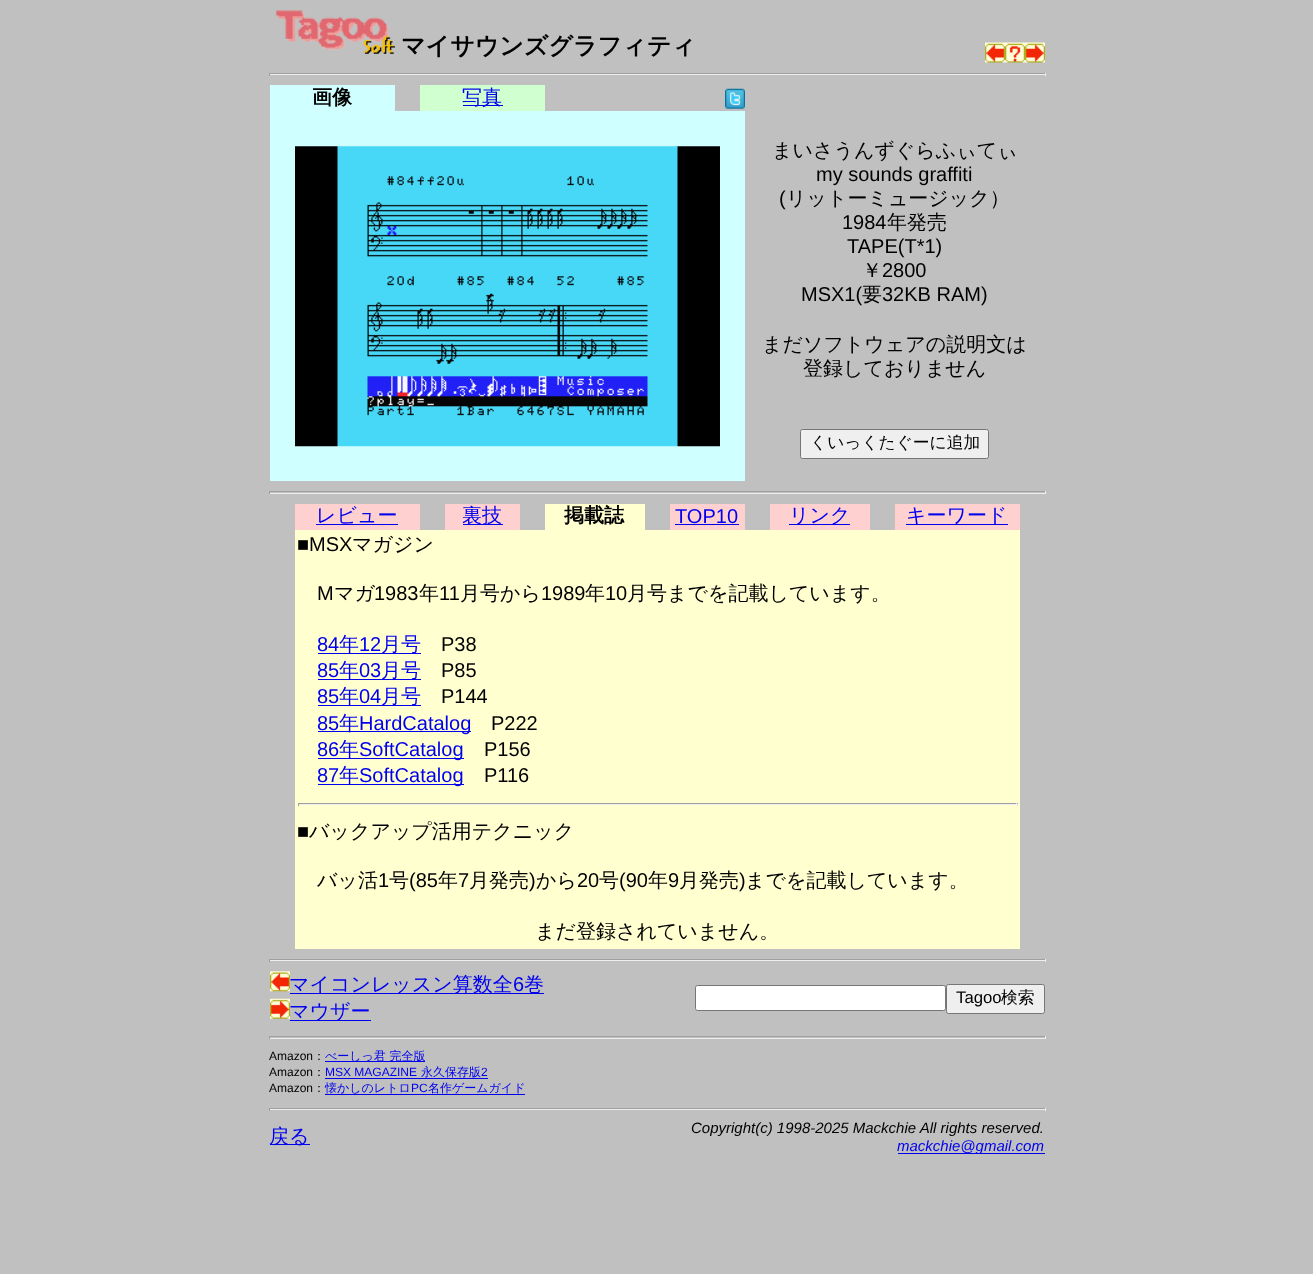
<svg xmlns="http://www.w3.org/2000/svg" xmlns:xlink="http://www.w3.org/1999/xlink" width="1313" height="1274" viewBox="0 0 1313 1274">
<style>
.cls-1{font:bold 24px WenQuanYi Zen Hei;fill:#000000}
.cls-2{font:bold 20px WenQuanYi Zen Hei;fill:#000000}
.cls-3{font:500 20px WenQuanYi Zen Hei;fill:#0000ee}
.cls-4{font:500 20px WenQuanYi Zen Hei;fill:#000000}
.cls-5{font:20px Liberation Sans;fill:#000000}
.cls-6{font:500 16.75px WenQuanYi Zen Hei;fill:#000000}
.cls-7{font:20px Liberation Sans;fill:#0000ee}
.cls-8{font:16.75px Liberation Sans;fill:#000000}
.cls-9{font:12px Liberation Sans;fill:#000000}
.cls-10{font:500 12px WenQuanYi Zen Hei;fill:#000000}
.cls-11{font:500 12px WenQuanYi Zen Hei;fill:#0000ee}
.cls-12{font:12px Liberation Sans;fill:#0000ee}
.cls-13{font:italic 15px Liberation Sans;fill:#000000}
.cls-14{font:italic 15px Liberation Sans;fill:#0000ee}
</style>
<rect width="100%" height="100%" fill="#c0c0c0"/>
<image xlink:href="image0.png" x="276" y="10" width="119" height="44"/>
<image xlink:href="image1.png" x="985" y="42" width="20" height="21"/>
<image xlink:href="image2.png" x="1005" y="42" width="20" height="21"/>
<image xlink:href="image3.png" x="1025" y="42" width="20" height="21"/>
<rect fill="#9f9f9f" x="269" y="73" width="777" height="1"/>
<rect fill="#eeeeee" x="1045" y="73" width="1" height="3"/>
<rect fill="#eeeeee" x="269" y="74" width="777" height="1"/>
<rect fill="#9f9f9f" x="269" y="73" width="1" height="3"/>
<rect fill="#d0ffff" x="270" y="85" width="125" height="26"/>
<rect fill="#d0ffd0" x="420" y="85" width="125" height="26"/>
<rect fill="#0000ee" x="463" y="105" width="40" height="1"/>
<image xlink:href="image4.png" x="725" y="88" width="20" height="21"/>
<rect fill="#d0ffff" x="270" y="111" width="475" height="370"/>
<image xlink:href="image5.png" x="295" y="146" width="425" height="301"/>
<rect fill="#efefef" stroke="#767676" x="800.5" y="429.5" width="188" height="29" rx="2"/>
<rect fill="#9f9f9f" x="269" y="491" width="777" height="1"/>
<rect fill="#eeeeee" x="1045" y="491" width="1" height="3"/>
<rect fill="#eeeeee" x="269" y="493" width="777" height="1"/>
<rect fill="#9f9f9f" x="269" y="491" width="1" height="3"/>
<rect fill="#ffd0d0" x="295" y="504" width="125" height="26"/>
<rect fill="#0000ee" x="316" y="524" width="82" height="1"/>
<rect fill="#ffd0d0" x="445" y="504" width="75" height="26"/>
<rect fill="#0000ee" x="463" y="524" width="40" height="1"/>
<rect fill="#ffffd0" x="545" y="504" width="100" height="26"/>
<rect fill="#ffd0d0" x="670" y="504" width="75" height="26"/>
<rect fill="#0000ee" x="675" y="524" width="64" height="1"/>
<rect fill="#ffd0d0" x="770" y="504" width="100" height="26"/>
<rect fill="#0000ee" x="789" y="524" width="61" height="1"/>
<rect fill="#ffd0d0" x="895" y="504" width="125" height="26"/>
<rect fill="#0000ee" x="906" y="524" width="102" height="1"/>
<rect fill="#ffffd0" x="295" y="530" width="725" height="419"/>
<rect fill="#0000ee" x="318" y="653" width="103" height="1"/>
<rect fill="#0000ee" x="318" y="679" width="103" height="1"/>
<rect fill="#0000ee" x="318" y="705" width="103" height="1"/>
<rect fill="#0000ee" x="318" y="731" width="153" height="1"/>
<rect fill="#0000ee" x="318" y="758" width="146" height="1"/>
<rect fill="#0000ee" x="318" y="784" width="146" height="1"/>
<rect fill="#9f9f9f" x="298" y="803" width="720" height="1"/>
<rect fill="#eeeeee" x="1016" y="803" width="1" height="3"/>
<rect fill="#eeeeee" x="298" y="804" width="720" height="1"/>
<rect fill="#9f9f9f" x="298" y="803" width="1" height="3"/>
<rect fill="#9f9f9f" x="269" y="959" width="777" height="1"/>
<rect fill="#eeeeee" x="1045" y="959" width="1" height="3"/>
<rect fill="#eeeeee" x="269" y="960" width="777" height="1"/>
<rect fill="#9f9f9f" x="269" y="959" width="1" height="3"/>
<image xlink:href="image6.png" x="270" y="971" width="20" height="21"/>
<rect fill="#0000ee" x="290" y="993" width="254" height="1"/>
<image xlink:href="image7.png" x="270" y="998" width="20" height="21"/>
<rect fill="#0000ee" x="290" y="1020" width="81" height="1"/>
<rect fill="#ffffff" stroke="#767676" x="695.5" y="985.5" width="250" height="25" rx="2"/>
<rect fill="#efefef" stroke="#767676" x="946.5" y="984.5" width="98" height="29" rx="2"/>
<rect fill="#9f9f9f" x="269" y="1036" width="777" height="1"/>
<rect fill="#eeeeee" x="1045" y="1036" width="1" height="3"/>
<rect fill="#eeeeee" x="269" y="1038" width="777" height="1"/>
<rect fill="#9f9f9f" x="269" y="1036" width="1" height="3"/>
<rect fill="#0000ee" x="325" y="1061" width="100" height="1"/>
<rect fill="#0000ee" x="325" y="1078" width="163" height="1"/>
<rect fill="#0000ee" x="325" y="1094" width="200" height="1"/>
<rect fill="#9f9f9f" x="269" y="1108" width="777" height="1"/>
<rect fill="#eeeeee" x="1045" y="1108" width="1" height="3"/>
<rect fill="#eeeeee" x="269" y="1109" width="777" height="1"/>
<rect fill="#9f9f9f" x="269" y="1108" width="1" height="3"/>
<rect fill="#0000ee" x="270" y="1144" width="40" height="1"/>
<rect fill="#0000ee" x="898" y="1153" width="147" height="1"/>
<text class="cls-1" x="401" y="54">マイサウンズグラフィティ</text>
<text class="cls-2" x="312" y="104">画像</text>
<text class="cls-3" x="462" y="104">写真</text>
<text class="cls-4" x="772" y="157">まいさうんずぐらふぃてぃ</text>
<text class="cls-5" x="816" y="181">my sounds graffiti</text>
<text class="cls-5" x="779" y="205">(</text>
<text class="cls-4" x="786" y="205">リットーミュージック）</text>
<text class="cls-5" x="842" y="229">1984</text>
<text class="cls-4" x="887" y="229">年発売</text>
<text class="cls-5" x="847" y="253">TAPE(T*1)</text>
<text class="cls-4" x="862" y="277">￥</text>
<text class="cls-5" x="882" y="277">2800</text>
<text class="cls-5" x="801" y="301">MSX1(</text>
<text class="cls-4" x="862" y="301">要</text>
<text class="cls-5" x="882" y="301">32KB RAM)</text>
<text class="cls-4" x="762" y="351">まだソフトウェアの説明文は</text>
<text class="cls-4" x="803" y="375">登録しておりません</text>
<text class="cls-6" x="810" y="448">くいっくたぐーに追加</text>
<text class="cls-3" x="316" y="522">レビュー</text>
<text class="cls-3" x="462" y="522">裏技</text>
<text class="cls-2" x="564" y="522">掲載誌</text>
<text class="cls-7" x="675" y="523">TOP10</text>
<text class="cls-3" x="789" y="522">リンク</text>
<text class="cls-3" x="906" y="522">キーワード</text>
<text class="cls-5" x="297" y="551">■MSX</text>
<text class="cls-4" x="352" y="551">マガジン</text>
<text class="cls-5" x="317" y="600">M</text>
<text class="cls-4" x="334" y="600">マガ</text>
<text class="cls-5" x="374" y="600">1983</text>
<text class="cls-4" x="419" y="600">年</text>
<text class="cls-5" x="439" y="600">11</text>
<text class="cls-4" x="460" y="600">月号から</text>
<text class="cls-5" x="541" y="600">1989</text>
<text class="cls-4" x="585" y="600">年</text>
<text class="cls-5" x="605" y="600">10</text>
<text class="cls-4" x="627" y="600">月号までを記載しています。</text>
<text class="cls-7" x="317" y="651">84</text>
<text class="cls-3" x="339" y="651">年</text>
<text class="cls-7" x="359" y="651">12</text>
<text class="cls-3" x="381" y="651">月号</text>
<text class="cls-5" x="441" y="651">P38</text>
<text class="cls-7" x="317" y="677">85</text>
<text class="cls-3" x="339" y="677">年</text>
<text class="cls-7" x="359" y="677">03</text>
<text class="cls-3" x="381" y="677">月号</text>
<text class="cls-5" x="441" y="677">P85</text>
<text class="cls-7" x="317" y="703">85</text>
<text class="cls-3" x="339" y="703">年</text>
<text class="cls-7" x="359" y="703">04</text>
<text class="cls-3" x="381" y="703">月号</text>
<text class="cls-5" x="441" y="703">P144</text>
<text class="cls-7" x="317" y="730">85</text>
<text class="cls-3" x="339" y="730">年</text>
<text class="cls-7" x="359" y="730">HardCatalog</text>
<text class="cls-5" x="491" y="730">P222</text>
<text class="cls-7" x="317" y="756">86</text>
<text class="cls-3" x="339" y="756">年</text>
<text class="cls-7" x="359" y="756">SoftCatalog</text>
<text class="cls-5" x="484" y="756">P156</text>
<text class="cls-7" x="317" y="782">87</text>
<text class="cls-3" x="339" y="782">年</text>
<text class="cls-7" x="359" y="782">SoftCatalog</text>
<text class="cls-5" x="484" y="782">P116</text>
<text class="cls-5" x="297" y="838">■</text>
<text class="cls-4" x="309" y="838">バックアップ活用テクニック</text>
<text class="cls-4" x="317" y="887">バッ活</text>
<text class="cls-5" x="378" y="887">1</text>
<text class="cls-4" x="389" y="887">号</text>
<text class="cls-5" x="409" y="887">(85</text>
<text class="cls-4" x="438" y="887">年</text>
<text class="cls-5" x="458" y="887">7</text>
<text class="cls-4" x="469" y="887">月発売</text>
<text class="cls-5" x="529" y="887">)</text>
<text class="cls-4" x="536" y="887">から</text>
<text class="cls-5" x="577" y="887">20</text>
<text class="cls-4" x="599" y="887">号</text>
<text class="cls-5" x="619" y="887">(90</text>
<text class="cls-4" x="648" y="887">年</text>
<text class="cls-5" x="668" y="887">9</text>
<text class="cls-4" x="679" y="887">月発売</text>
<text class="cls-5" x="739" y="887">)</text>
<text class="cls-4" x="745" y="887">までを記載しています。</text>
<text class="cls-4" x="535" y="938">まだ登録されていません。</text>
<text class="cls-3" x="289" y="991">マイコンレッスン算数全</text>
<text class="cls-7" x="513" y="991">6</text>
<text class="cls-3" x="524" y="991">巻</text>
<text class="cls-3" x="289" y="1018">マウザー</text>
<text class="cls-8" x="956" y="1003">Tagoo</text>
<text class="cls-6" x="1001" y="1003">検索</text>
<text class="cls-9" x="269" y="1060">Amazon</text>
<text class="cls-10" x="313" y="1060">：</text>
<text class="cls-11" x="325" y="1060">べーしっ君 完全版</text>
<text class="cls-9" x="269" y="1076">Amazon</text>
<text class="cls-10" x="313" y="1076">：</text>
<text class="cls-12" x="325" y="1076">MSX MAGAZINE</text>
<text class="cls-11" x="421" y="1076">永久保存版</text>
<text class="cls-12" x="481" y="1076">2</text>
<text class="cls-9" x="269" y="1092">Amazon</text>
<text class="cls-10" x="313" y="1092">：</text>
<text class="cls-11" x="325" y="1092">懐かしのレトロ</text>
<text class="cls-12" x="411" y="1092">PC</text>
<text class="cls-11" x="428" y="1092">名作ゲームガイド</text>
<text class="cls-3" x="269" y="1143">戻る</text>
<text class="cls-13" x="691" y="1133">Copyright(c) 1998-2025 Mackchie All rights reserved.</text>
<text class="cls-14" x="897" y="1151">mackchie@gmail.com</text>
</svg>
